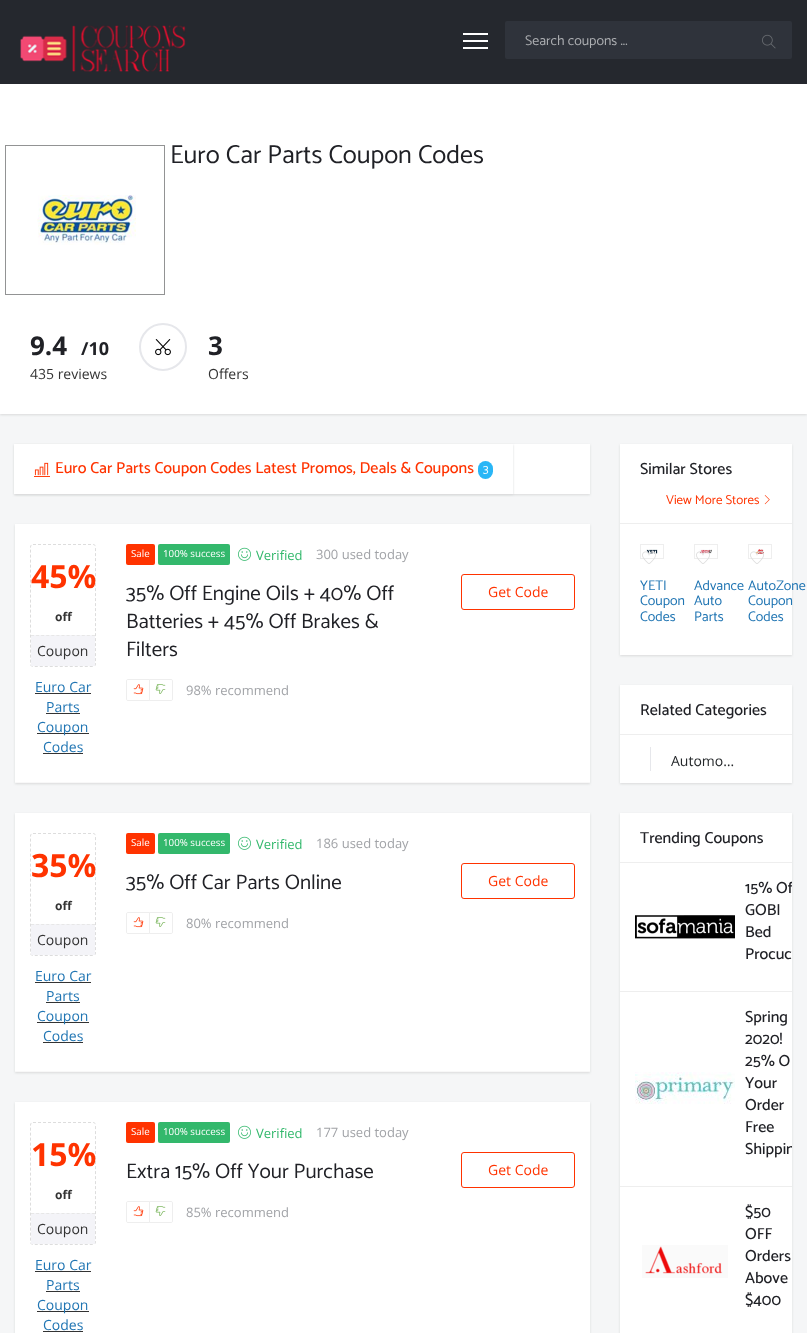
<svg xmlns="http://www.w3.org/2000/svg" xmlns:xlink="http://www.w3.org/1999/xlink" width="807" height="1333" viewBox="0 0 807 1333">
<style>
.cls-1{font:14px Catamaran;fill:#acaeb1}
.cls-2{font:26px Catamaran;fill:#202126}
.cls-3{font:bold 26px Open Sans;fill:#202126}
.cls-4{font:bold 18px Open Sans;fill:#202126}
.cls-5{font:14px Open Sans;fill:#333333}
.cls-6{font:500 16px Catamaran;fill:#ff3300}
.cls-7{font:12px Catamaran;fill:#ffffff}
.cls-8{font:bold 32px Open Sans;fill:#ff3300}
.cls-9{font:bold 12px Open Sans;fill:#333333}
.cls-10{font:14px Open Sans;fill:#2075b3}
.cls-11{font:9.75px Open Sans;fill:#ffffff}
.cls-12{font:13px Open Sans;fill:#33b86c}
.cls-13{font:13px Open Sans;fill:#a1a3a7}
.cls-14{font:21px Catamaran;fill:#202126}
.cls-15{font:14px Open Sans;fill:#ff3300}
.cls-16{font:500 16px Catamaran;fill:#202126}
.cls-17{font:13px Catamaran;fill:#ff3300}
.cls-18{font:14px Catamaran;fill:#2075b3}
.cls-19{font:14px Open Sans;fill:#25282b}
</style>
<defs>
<clipPath id="clip1"><rect x="461" y="574" width="114" height="36" rx="2"/></clipPath>
<clipPath id="clip2"><rect x="461" y="863" width="114" height="36" rx="2"/></clipPath>
<clipPath id="clip3"><rect x="461" y="1152" width="114" height="36" rx="2"/></clipPath>
<clipPath id="clip4"><rect x="745" y="878" width="47" height="98"/></clipPath>
<clipPath id="clip5"><rect x="745" y="1007" width="47" height="164"/></clipPath>
</defs>
<rect width="100%" height="100%" fill="#f5f6f7"/>
<rect fill="#d9dadb" filter="blur(1px)" x="0" y="66" width="807" height="349"/>
<rect fill="#25282e" x="0" y="0" width="807" height="84"/>
<image xlink:href="image0.png" x="20" y="25" width="166" height="47"/>
<rect fill="#ffffff" x="463" y="33" width="25" height="2"/>
<rect fill="#ffffff" x="463" y="40" width="25" height="2"/>
<rect fill="#ffffff" x="463" y="47" width="25" height="2"/>
<image xlink:href="image1.png" x="762" y="34" width="14" height="15"/>
<rect fill="#363b43" fill-opacity="0.63" x="505" y="21" width="287" height="38" rx="2"/>
<rect fill="#ffffff" x="0" y="84" width="807" height="330"/>
<rect fill="none" stroke="#929394" x="5.5" y="145.5" width="159" height="149"/>
<image xlink:href="image2.png" x="37" y="195" width="99" height="50"/>
<circle fill="none" stroke="#e6e7eb" stroke-width="2" cx="163" cy="347" r="23"/>
<image xlink:href="image3.png" x="155" y="339" width="16" height="17"/>
<rect fill="#d9dadb" filter="blur(1px)" x="15" y="445" width="575" height="50"/>
<rect fill="#ffffff" x="513" y="444" width="77" height="50"/>
<rect fill="#d9dadb" filter="blur(1px)" x="14" y="445" width="499" height="50"/>
<rect fill="#ffffff" x="14" y="444" width="499" height="50"/>
<image xlink:href="image4.png" x="34" y="462" width="16" height="15"/>
<rect fill="#29b6f6" x="478" y="461" width="15" height="18" rx="7.5"/>
<rect fill="#d9dadb" filter="blur(1px)" x="15" y="525" width="575" height="259"/>
<rect fill="#ffffff" x="15" y="524" width="575" height="258"/>
<rect fill="#f8f8f8" x="15" y="782" width="575" height="1"/>
<path fill="none" stroke="#dddddd" stroke-dasharray="3 2" d="M33 544.5H93C94.5 544.5 95.5 545.5 95.5 547V664C95.5 665.5 94.5 666.5 93 666.5H33C31.5 666.5 30.5 665.5 30.5 664V547C30.5 545.5 31.5 544.5 33 544.5Z"/>
<rect fill="#f2f2f7" fill-opacity="0.86" x="31" y="635" width="64" height="31"/>
<path fill="none" stroke="#e7e7e7" stroke-dasharray="3 2.08" d="M31 635.5H95"/>
<rect fill="#333333" x="35" y="693" width="56" height="1"/>
<rect fill="#333333" x="46" y="713" width="34" height="1"/>
<rect fill="#333333" x="37" y="733" width="52" height="1"/>
<rect fill="#333333" x="43" y="753" width="40" height="1"/>
<rect fill="#ff3300" x="126" y="544" width="29" height="21" rx="2"/>
<rect fill="#33b86c" x="158" y="544" width="72" height="21" rx="2"/>
<image xlink:href="image5.png" x="238" y="547" width="13" height="14"/>
<path fill="none" stroke="#eeeeee" d="M128 679.5H149.5V700.5H128C127 700.5 126.5 700 126.5 699V681C126.5 680 127 679.5 128 679.5Z"/>
<image xlink:href="image6.png" x="133" y="684" width="11" height="11"/>
<path fill="#ffffff" stroke="#eeeeee" d="M149.5 679.5H171C172 679.5 172.5 680 172.5 681V699C172.5 700 172 700.5 171 700.5H149.5Z"/>
<image xlink:href="image7.png" x="155" y="684" width="11" height="10"/>
<path fill="none" stroke="#4a90e2" stroke-dasharray="3 2" d="M464 574.5H572C573.5 574.5 574.5 575.5 574.5 577V607C574.5 608.5 573.5 609.5 572 609.5H464C462.5 609.5 461.5 608.5 461.5 607V577C461.5 575.5 462.5 574.5 464 574.5Z"/>
<g clip-path="url(#clip1)">
<rect fill="#ffffff" x="461" y="574" width="114" height="36" rx="3"/>
</g>
<rect fill="none" stroke="#ff3300" x="461.5" y="574.5" width="113" height="35" rx="2.5"/>
<rect fill="#d9dadb" filter="blur(1px)" x="15" y="814" width="575" height="259"/>
<rect fill="#ffffff" x="15" y="813" width="575" height="258"/>
<rect fill="#f8f8f8" x="15" y="1071" width="575" height="1"/>
<path fill="none" stroke="#dddddd" stroke-dasharray="3 2" d="M33 833.5H93C94.5 833.5 95.5 834.5 95.5 836V953C95.5 954.5 94.5 955.5 93 955.5H33C31.5 955.5 30.5 954.5 30.5 953V836C30.5 834.5 31.5 833.5 33 833.5Z"/>
<rect fill="#f2f2f7" fill-opacity="0.86" x="31" y="924" width="64" height="31"/>
<path fill="none" stroke="#e7e7e7" stroke-dasharray="3 2.08" d="M31 924.5H95"/>
<rect fill="#333333" x="35" y="982" width="56" height="1"/>
<rect fill="#333333" x="46" y="1002" width="34" height="1"/>
<rect fill="#333333" x="37" y="1022" width="52" height="1"/>
<rect fill="#333333" x="43" y="1042" width="40" height="1"/>
<rect fill="#ff3300" x="126" y="833" width="29" height="21" rx="2"/>
<rect fill="#33b86c" x="158" y="833" width="72" height="21" rx="2"/>
<image xlink:href="image5.png" x="238" y="836" width="13" height="14"/>
<path fill="none" stroke="#eeeeee" d="M128 912.5H149.5V933.5H128C127 933.5 126.5 933 126.5 932V914C126.5 913 127 912.5 128 912.5Z"/>
<image xlink:href="image6.png" x="133" y="917" width="11" height="11"/>
<path fill="#ffffff" stroke="#eeeeee" d="M149.5 912.5H171C172 912.5 172.5 913 172.5 914V932C172.5 933 172 933.5 171 933.5H149.5Z"/>
<image xlink:href="image7.png" x="155" y="917" width="11" height="10"/>
<path fill="none" stroke="#4a90e2" stroke-dasharray="3 2" d="M464 863.5H572C573.5 863.5 574.5 864.5 574.5 866V896C574.5 897.5 573.5 898.5 572 898.5H464C462.5 898.5 461.5 897.5 461.5 896V866C461.5 864.5 462.5 863.5 464 863.5Z"/>
<g clip-path="url(#clip2)">
<rect fill="#ffffff" x="461" y="863" width="114" height="36" rx="3"/>
</g>
<rect fill="none" stroke="#ff3300" x="461.5" y="863.5" width="113" height="35" rx="2.5"/>
<rect fill="#d9dadb" filter="blur(1px)" x="15" y="1103" width="575" height="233"/>
<rect fill="#ffffff" x="15" y="1102" width="575" height="231"/>
<path fill="none" stroke="#dddddd" stroke-dasharray="3 2" d="M33 1122.5H93C94.5 1122.5 95.5 1123.5 95.5 1125V1242C95.5 1243.5 94.5 1244.5 93 1244.5H33C31.5 1244.5 30.5 1243.5 30.5 1242V1125C30.5 1123.5 31.5 1122.5 33 1122.5Z"/>
<rect fill="#f2f2f7" fill-opacity="0.86" x="31" y="1213" width="64" height="31"/>
<path fill="none" stroke="#e7e7e7" stroke-dasharray="3 2.08" d="M31 1213.5H95"/>
<rect fill="#333333" x="35" y="1271" width="56" height="1"/>
<rect fill="#333333" x="46" y="1291" width="34" height="1"/>
<rect fill="#333333" x="37" y="1311" width="52" height="1"/>
<rect fill="#333333" x="43" y="1331" width="40" height="1"/>
<rect fill="#ff3300" x="126" y="1122" width="29" height="21" rx="2"/>
<rect fill="#33b86c" x="158" y="1122" width="72" height="21" rx="2"/>
<image xlink:href="image5.png" x="238" y="1125" width="13" height="14"/>
<path fill="none" stroke="#eeeeee" d="M128 1201.5H149.5V1222.5H128C127 1222.5 126.5 1222 126.5 1221V1203C126.5 1202 127 1201.5 128 1201.5Z"/>
<image xlink:href="image6.png" x="133" y="1206" width="11" height="11"/>
<path fill="#ffffff" stroke="#eeeeee" d="M149.5 1201.5H171C172 1201.5 172.5 1202 172.5 1203V1221C172.5 1222 172 1222.5 171 1222.5H149.5Z"/>
<image xlink:href="image7.png" x="155" y="1206" width="11" height="10"/>
<path fill="none" stroke="#4a90e2" stroke-dasharray="3 2" d="M464 1152.5H572C573.5 1152.5 574.5 1153.5 574.5 1155V1185C574.5 1186.5 573.5 1187.5 572 1187.5H464C462.5 1187.5 461.5 1186.5 461.5 1185V1155C461.5 1153.5 462.5 1152.5 464 1152.5Z"/>
<g clip-path="url(#clip3)">
<rect fill="#ffffff" x="461" y="1152" width="114" height="36" rx="3"/>
</g>
<rect fill="none" stroke="#ff3300" x="461.5" y="1152.5" width="113" height="35" rx="2.5"/>
<rect fill="#d9dadb" filter="blur(1px)" x="620" y="445" width="172" height="211"/>
<rect fill="#ffffff" x="620" y="444" width="172" height="211"/>
<rect fill="#eeeeee" x="620" y="523" width="172" height="1"/>
<image xlink:href="image8.png" x="764" y="495" width="6" height="10"/>
<rect fill="none" stroke="#eeeeee" x="640.5" y="544.5" width="23" height="14"/>
<image xlink:href="image9.png" x="646" y="549" width="12" height="5"/>
<image xlink:href="image10.png" x="642" y="551" width="14" height="13"/>
<rect fill="none" stroke="#eeeeee" x="694.5" y="544.5" width="23" height="14"/>
<image xlink:href="image11.png" x="699" y="549" width="13" height="5"/>
<image xlink:href="image12.png" x="696" y="551" width="14" height="13"/>
<rect fill="none" stroke="#eeeeee" x="748.5" y="544.5" width="23" height="14"/>
<image xlink:href="image13.png" x="755" y="549" width="9" height="5"/>
<image xlink:href="image14.png" x="750" y="551" width="14" height="13"/>
<rect fill="#d9dadb" filter="blur(1px)" x="620" y="686" width="172" height="98"/>
<rect fill="#ffffff" x="620" y="685" width="172" height="98"/>
<rect fill="#eeeeee" x="620" y="734" width="172" height="1"/>
<rect fill="#e6e7eb" x="650" y="747" width="1" height="24"/>
<rect fill="#d9dadb" filter="blur(1px)" x="620" y="814" width="172" height="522"/>
<rect fill="#ffffff" x="620" y="813" width="172" height="520"/>
<rect fill="#eeeeee" x="620" y="862" width="172" height="1"/>
<rect fill="#eeeeee" x="620" y="991" width="172" height="1"/>
<image xlink:href="image15.png" x="635" y="915" width="100" height="24"/>
<rect fill="#eeeeee" x="620" y="1186" width="172" height="1"/>
<image xlink:href="image16.png" x="635" y="1072" width="100" height="32"/>
<image xlink:href="image17.png" x="642" y="1245" width="86" height="33"/>
<text class="cls-1" x="525" y="45">Search coupons ...</text>
<text class="cls-2" x="170" y="163">Euro Car Parts Coupon Codes</text>
<text class="cls-3" x="30" y="355">9.4</text>
<text class="cls-4" x="81" y="355">/10</text>
<text class="cls-5" x="30" y="379">435 reviews</text>
<text class="cls-3" x="208" y="355">3</text>
<text class="cls-5" x="208" y="379">Offers</text>
<text class="cls-6" x="55" y="473">Euro Car Parts Coupon Codes Latest Promos, Deals &amp; Coupons</text>
<text class="cls-7" x="483" y="473">3</text>
<text class="cls-8" x="31" y="588">45%</text>
<text class="cls-9" x="55" y="621">off</text>
<text class="cls-5" x="37" y="656">Coupon</text>
<text class="cls-10" x="35" y="692">Euro Car</text>
<text class="cls-10" x="46" y="712">Parts</text>
<text class="cls-10" x="37" y="732">Coupon</text>
<text class="cls-10" x="43" y="752">Codes</text>
<text class="cls-11" x="131" y="557">Sale</text>
<text class="cls-11" x="163" y="557">100% success</text>
<text class="cls-12" x="256" y="560">Verified</text>
<text class="cls-13" x="316" y="559">300 used today</text>
<text class="cls-14"><tspan x="126" y="600">35% Off Engine Oils + 40% Off</tspan><tspan x="126" y="628">Batteries + 45% Off Brakes &amp;</tspan><tspan x="126" y="656">Filters</tspan></text>
<text class="cls-13" x="186" y="695">98% recommend</text>
<text class="cls-15" x="488" y="597">Get Code</text>
<text class="cls-8" x="31" y="877">35%</text>
<text class="cls-9" x="55" y="910">off</text>
<text class="cls-5" x="37" y="945">Coupon</text>
<text class="cls-10" x="35" y="981">Euro Car</text>
<text class="cls-10" x="46" y="1001">Parts</text>
<text class="cls-10" x="37" y="1021">Coupon</text>
<text class="cls-10" x="43" y="1041">Codes</text>
<text class="cls-11" x="131" y="846">Sale</text>
<text class="cls-11" x="163" y="846">100% success</text>
<text class="cls-12" x="256" y="849">Verified</text>
<text class="cls-13" x="316" y="848">186 used today</text>
<text class="cls-14" x="126" y="889">35% Off Car Parts Online</text>
<text class="cls-13" x="186" y="928">80% recommend</text>
<text class="cls-15" x="488" y="886">Get Code</text>
<text class="cls-8" x="31" y="1166">15%</text>
<text class="cls-9" x="55" y="1199">off</text>
<text class="cls-5" x="37" y="1234">Coupon</text>
<text class="cls-10" x="35" y="1270">Euro Car</text>
<text class="cls-10" x="46" y="1290">Parts</text>
<text class="cls-10" x="37" y="1310">Coupon</text>
<text class="cls-10" x="43" y="1330">Codes</text>
<text class="cls-11" x="131" y="1135">Sale</text>
<text class="cls-11" x="163" y="1135">100% success</text>
<text class="cls-12" x="256" y="1138">Verified</text>
<text class="cls-13" x="316" y="1137">177 used today</text>
<text class="cls-14" x="126" y="1178">Extra 15% Off Your Purchase</text>
<text class="cls-13" x="186" y="1217">85% recommend</text>
<text class="cls-15" x="488" y="1175">Get Code</text>
<text class="cls-16" x="640" y="474">Similar Stores</text>
<text class="cls-17" x="666" y="504">View More Stores</text>
<text class="cls-18"><tspan x="640" y="590">YETI</tspan><tspan x="640" y="605">Coupon</tspan><tspan x="640" y="621">Codes</tspan></text>
<text class="cls-18"><tspan x="694" y="590">Advance</tspan><tspan x="694" y="605">Auto</tspan><tspan x="694" y="621">Parts</tspan></text>
<text class="cls-18"><tspan x="748" y="590">AutoZone</tspan><tspan x="748" y="605">Coupon</tspan><tspan x="748" y="621">Codes</tspan></text>
<text class="cls-16" x="640" y="715">Related Categories</text>
<text class="cls-19" x="671" y="766">Automo…</text>
<text class="cls-16" x="640" y="843">Trending Coupons</text>
<g clip-path="url(#clip4)">
<text class="cls-16" x="745" y="893">15% Of</text>
</g>
<text class="cls-16"><tspan x="745" y="915">GOBI</tspan><tspan x="745" y="937">Bed</tspan><tspan x="745" y="959">Procuc</tspan></text>
<text class="cls-16"><tspan x="745" y="1022">Spring</tspan><tspan x="745" y="1044">2020!</tspan><tspan x="745" y="1066">25% O</tspan><tspan x="745" y="1088">Your</tspan><tspan x="745" y="1110">Order</tspan><tspan x="745" y="1132">Free</tspan></text>
<g clip-path="url(#clip5)">
<text class="cls-16" x="745" y="1154">Shippin</text>
</g>
<text class="cls-16"><tspan x="745" y="1217">$50</tspan><tspan x="745" y="1239">OFF</tspan><tspan x="745" y="1261">Orders</tspan><tspan x="745" y="1283">Above</tspan><tspan x="745" y="1305">$400</tspan></text>
</svg>
